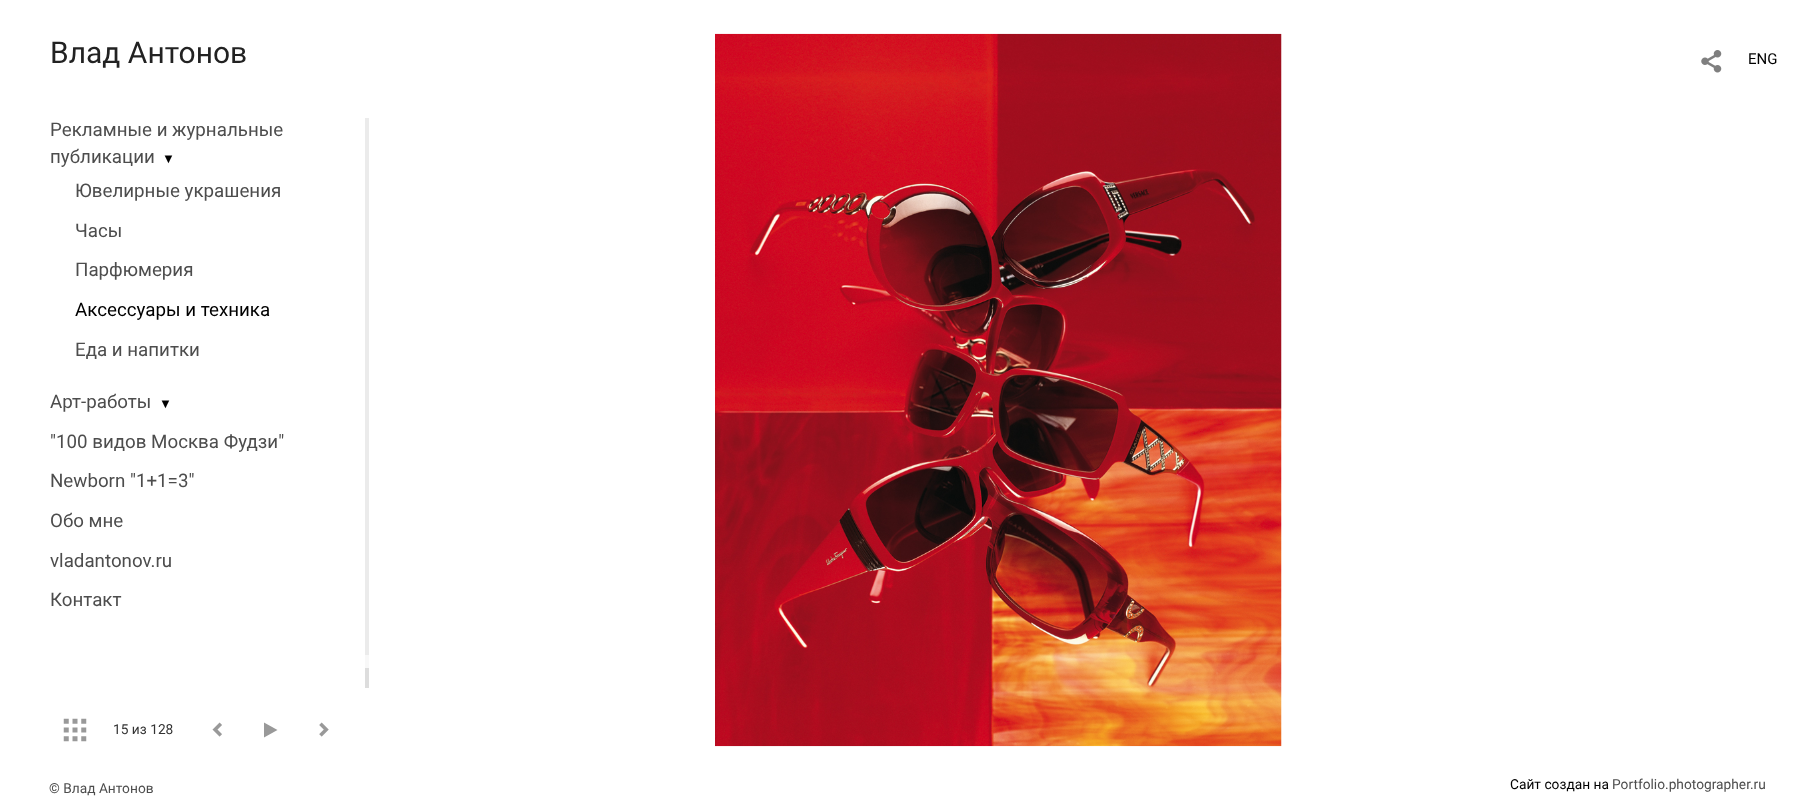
<svg xmlns="http://www.w3.org/2000/svg" xmlns:xlink="http://www.w3.org/1999/xlink" width="1814" height="812" viewBox="0 0 1814 812">
<style>
.cls-1{font:30px Roboto;fill:#222222}
.cls-2{font:18.75px Roboto;fill:#4d4d4d}
.cls-3{font:13px Liberation Serif;fill:#000000}
.cls-4{font:18.75px Roboto;fill:#000000}
.cls-5{font:13.75px Roboto;fill:#333333}
.cls-6{font:15px Roboto;fill:#000000}
.cls-7{font:13.75px Roboto;fill:#4d4d4d}
.cls-8{font:13.75px Roboto;fill:#000000}
</style>
<rect width="100%" height="100%" fill="#ffffff"/>
<rect fill="#ebebeb" x="365" y="118" width="4" height="537"/>
<rect fill="#f8f8f8" x="365" y="655" width="4" height="13"/>
<rect fill="#dddddd" x="365" y="668" width="4" height="20"/>
<image xlink:href="image0.png" x="63" y="718" width="24" height="24"/>
<image xlink:href="image1.png" x="212" y="722" width="10" height="15"/>
<path fill="#999999" d="M277.5 730L264 737.5V722.5Z"/>
<image xlink:href="image2.png" x="319" y="722" width="10" height="15"/>
<image xlink:href="image3.png" x="715" y="33" width="567" height="714"/>
<image xlink:href="image4.png" x="1701" y="50" width="21" height="23"/>
<text class="cls-1" x="50" y="63">Влад Антонов</text>
<text class="cls-2"><tspan x="50" y="136">Рекламные и журнальные</tspan><tspan x="50" y="163">публикации</tspan></text>
<text class="cls-3" x="162" y="163">▼</text>
<text class="cls-2" x="75" y="197">Ювелирные украшения</text>
<text class="cls-2" x="75" y="237">Часы</text>
<text class="cls-2" x="75" y="276">Парфюмерия</text>
<text class="cls-4" x="75" y="316">Аксессуары и техника</text>
<text class="cls-2" x="75" y="356">Еда и напитки</text>
<text class="cls-2" x="50" y="408">Арт-работы</text>
<text class="cls-3" x="159" y="408">▼</text>
<text class="cls-2" x="50" y="448">"100 видов Москва Фудзи"</text>
<text class="cls-2" x="50" y="487">Newborn "1+1=3"</text>
<text class="cls-2" x="50" y="527">Обо мне</text>
<text class="cls-2" x="50" y="567">vladantonov.ru</text>
<text class="cls-2" x="50" y="606">Контакт</text>
<text class="cls-5" x="113" y="734">15 из 128</text>
<text class="cls-6" x="1748" y="64">ENG</text>
<text class="cls-7" x="49" y="793">© Влад Антонов</text>
<text class="cls-8" x="1510" y="789">Сайт создан на</text>
<text class="cls-7" x="1612" y="789">Portfolio.photographer.ru</text>
</svg>
